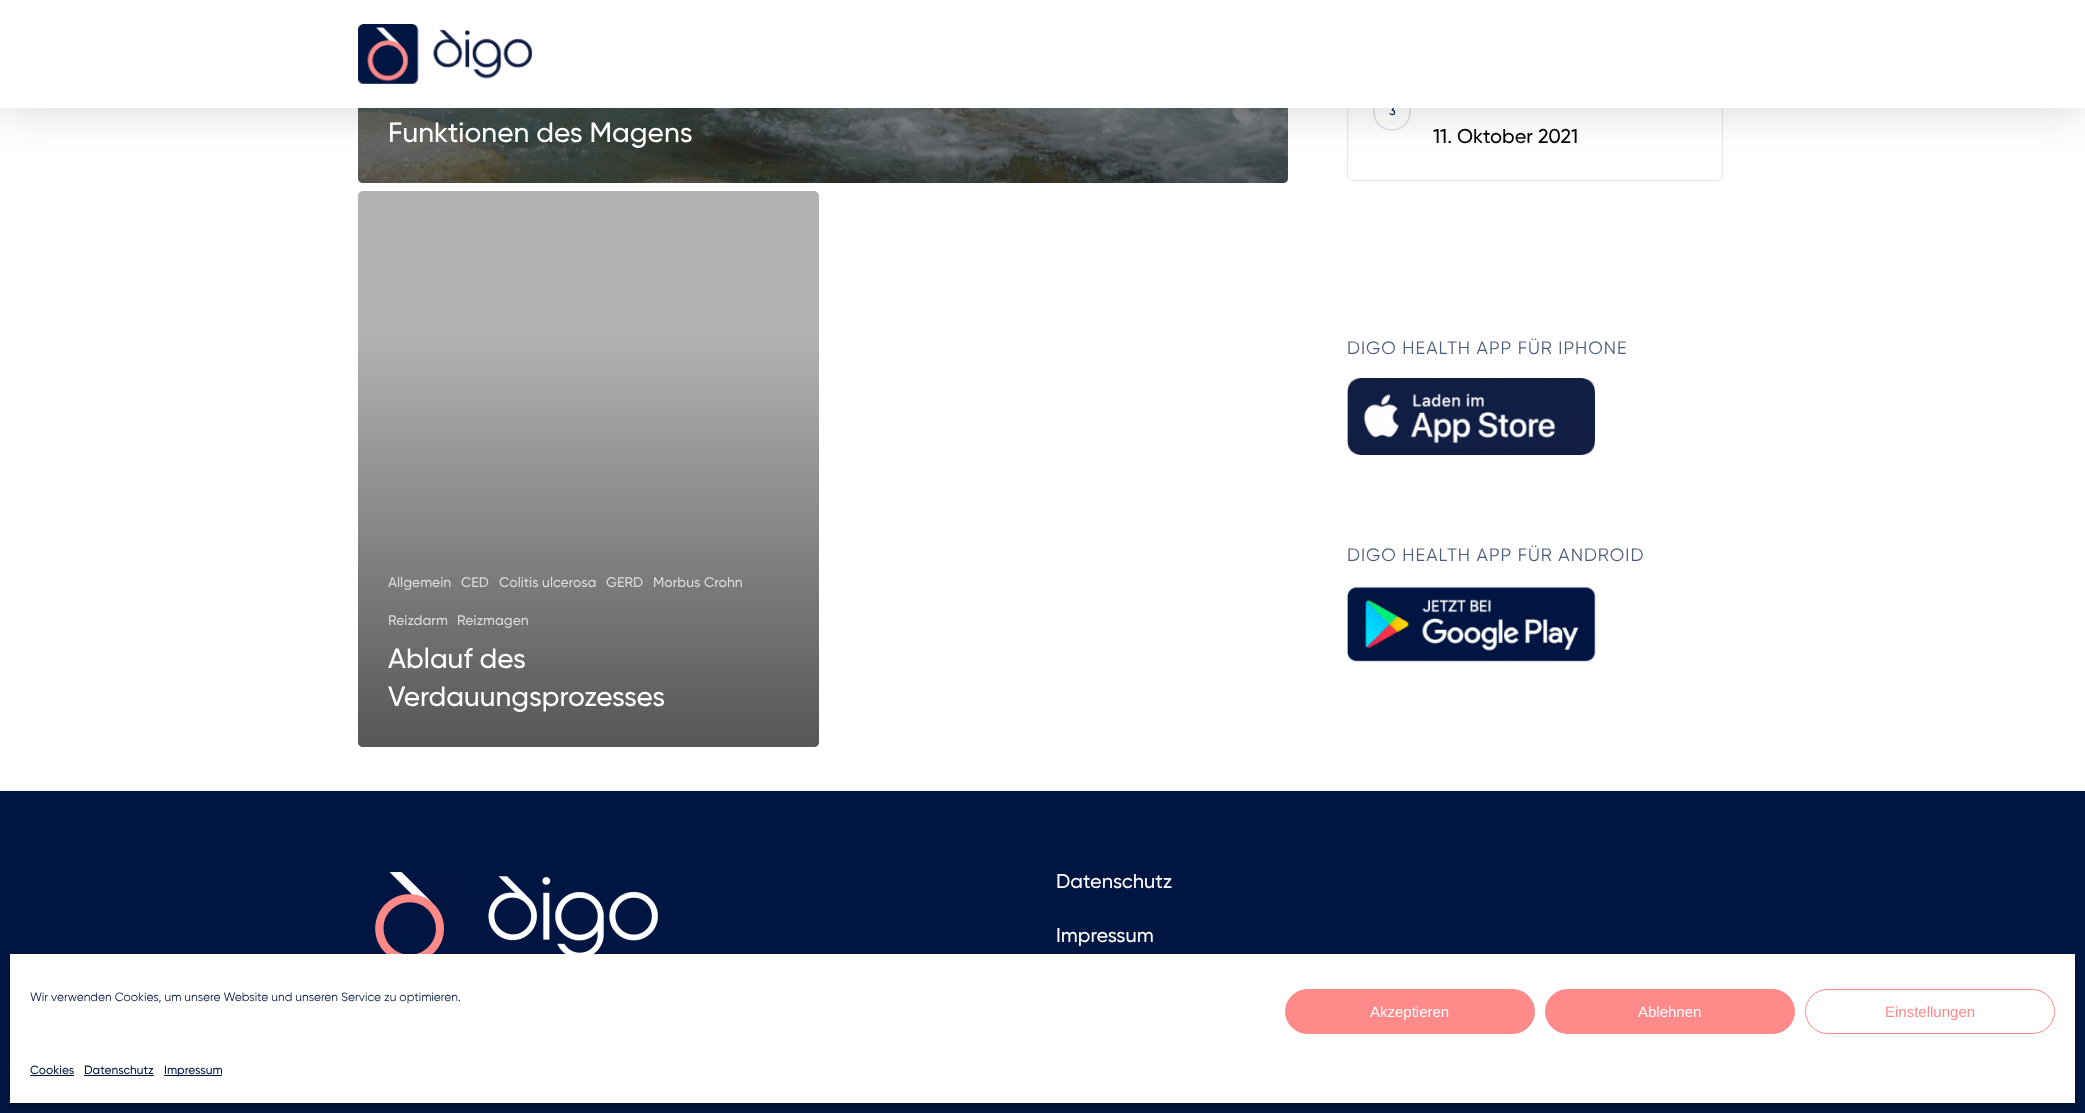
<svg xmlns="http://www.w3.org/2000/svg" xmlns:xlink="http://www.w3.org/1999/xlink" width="2085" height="1113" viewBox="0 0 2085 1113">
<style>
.cls-1{font:500 28px Gilroy;fill:#ffffff}
.cls-2{font:500 14px Gilroy;fill:#dadada}
.cls-3{font:bold 12px Gilroy;fill:#001642}
.cls-4{font:500 20px Gilroy;fill:#000000}
.cls-5{font:18px Gilroy;letter-spacing:1px;fill:#4d5c7b}
.cls-6{font:500 20px Gilroy;fill:#ffffff}
.cls-7{font:12px Gilroy;fill:#001642}
.cls-8{font:15px Liberation Sans;fill:#ffffff}
.cls-9{font:15px Liberation Sans;fill:#ff8a8a}
.cls-10{font:500 12px Gilroy;fill:#001642}
</style>
<defs>
<linearGradient id="g1" gradientUnits="userSpaceOnUse" x1="826" y1="-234" x2="826" y2="185"><stop offset="0" stop-color="#232323" stop-opacity="0"/><stop offset="1" stop-color="#232323" stop-opacity="0.65"/></linearGradient>
<linearGradient id="g2" gradientUnits="userSpaceOnUse" x1="590" y1="330" x2="590" y2="750"><stop offset="0" stop-color="#232323" stop-opacity="0"/><stop offset="1" stop-color="#232323" stop-opacity="0.65"/></linearGradient>
</defs>
<rect width="100%" height="100%" fill="#ffffff"/>
<image xlink:href="image1.png" x="358" y="108" width="930" height="75"/>
<path fill="url(#g1)" d="M358-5H1288V178C1288 181 1286 183 1283 183H363C360 183 358 181 358 178Z"/>
<rect fill="none" stroke="#e6e6e6" x="1347.5" y="67.5" width="375" height="113" rx="4.5"/>
<circle fill="none" stroke="#e6e6e6" stroke-width="2" cx="1392" cy="112" r="18"/>
<rect fill="#000000" fill-opacity="0.15" filter="blur(22.5px)" x="0" y="3" width="2085" height="108"/>
<rect fill="#b3b3b3" x="358" y="191" width="461" height="556" rx="5"/>
<path fill="url(#g2)" d="M358 330H819V742C819 745 817 747 814 747H363C360 747 358 745 358 742Z"/>
<image xlink:href="image2.png" x="1347" y="378" width="248" height="77"/>
<image xlink:href="image3.png" x="1347" y="586" width="249" height="76"/>
<rect fill="#001642" x="0" y="791" width="2085" height="322"/>
<image xlink:href="image4.png" x="375" y="872" width="283" height="82"/>
<rect fill="#000000" fill-opacity="0.23" filter="blur(3px)" x="10" y="960" width="2065" height="149"/>
<rect fill="#ffffff" x="10" y="954" width="2065" height="149"/>
<rect fill="#ff8a8a" stroke="#ff8a8a" x="1285.5" y="989.5" width="249" height="44" rx="22"/>
<rect fill="#ff8a8a" stroke="#ff8a8a" x="1545.5" y="989.5" width="249" height="44" rx="22"/>
<rect fill="none" stroke="#ff8a8a" x="1805.5" y="989.5" width="249" height="44" rx="22"/>
<rect fill="#001642" x="30" y="1075" width="44" height="1"/>
<rect fill="#001642" x="84" y="1075" width="70" height="1"/>
<rect fill="#001642" x="164" y="1075" width="58" height="1"/>
<text class="cls-1" x="388" y="142">Funktionen des Magens</text>
<text class="cls-2" x="388" y="587">Allgemein</text>
<text class="cls-2" x="461" y="587">CED</text>
<text class="cls-2" x="499" y="587">Colitis ulcerosa</text>
<text class="cls-2" x="606" y="587">GERD</text>
<text class="cls-2" x="653" y="587">Morbus Crohn</text>
<text class="cls-2" x="388" y="625">Reizdarm</text>
<text class="cls-2" x="457" y="625">Reizmagen</text>
<text class="cls-1"><tspan x="388" y="668">Ablauf des</tspan><tspan x="388" y="706">Verdauungsprozesses</tspan></text>
<text class="cls-3" x="1389" y="115">3</text>
<rect fill="#ffffff" x="0" y="0" width="2085" height="108"/>
<image xlink:href="image0.png" x="358" y="24" width="175" height="60"/>
<text class="cls-4" x="1433" y="143">11. Oktober 2021</text>
<text class="cls-5" x="1347" y="354">DIGO HEALTH APP FÜR IPHONE</text>
<text class="cls-5" x="1347" y="561">DIGO HEALTH APP FÜR ANDROID</text>
<text class="cls-6" x="1056" y="888">Datenschutz</text>
<text class="cls-6" x="1056" y="942">Impressum</text>
<text class="cls-7" x="30" y="1001">Wir verwenden Cookies, um unsere Website und unseren Service zu optimieren.</text>
<text class="cls-8" x="1370" y="1017">Akzeptieren</text>
<text class="cls-8" x="1638" y="1017">Ablehnen</text>
<text class="cls-9" x="1885" y="1017">Einstellungen</text>
<text class="cls-10" x="30" y="1074">Cookies</text>
<text class="cls-10" x="84" y="1074">Datenschutz</text>
<text class="cls-10" x="164" y="1074">Impressum</text>
</svg>
